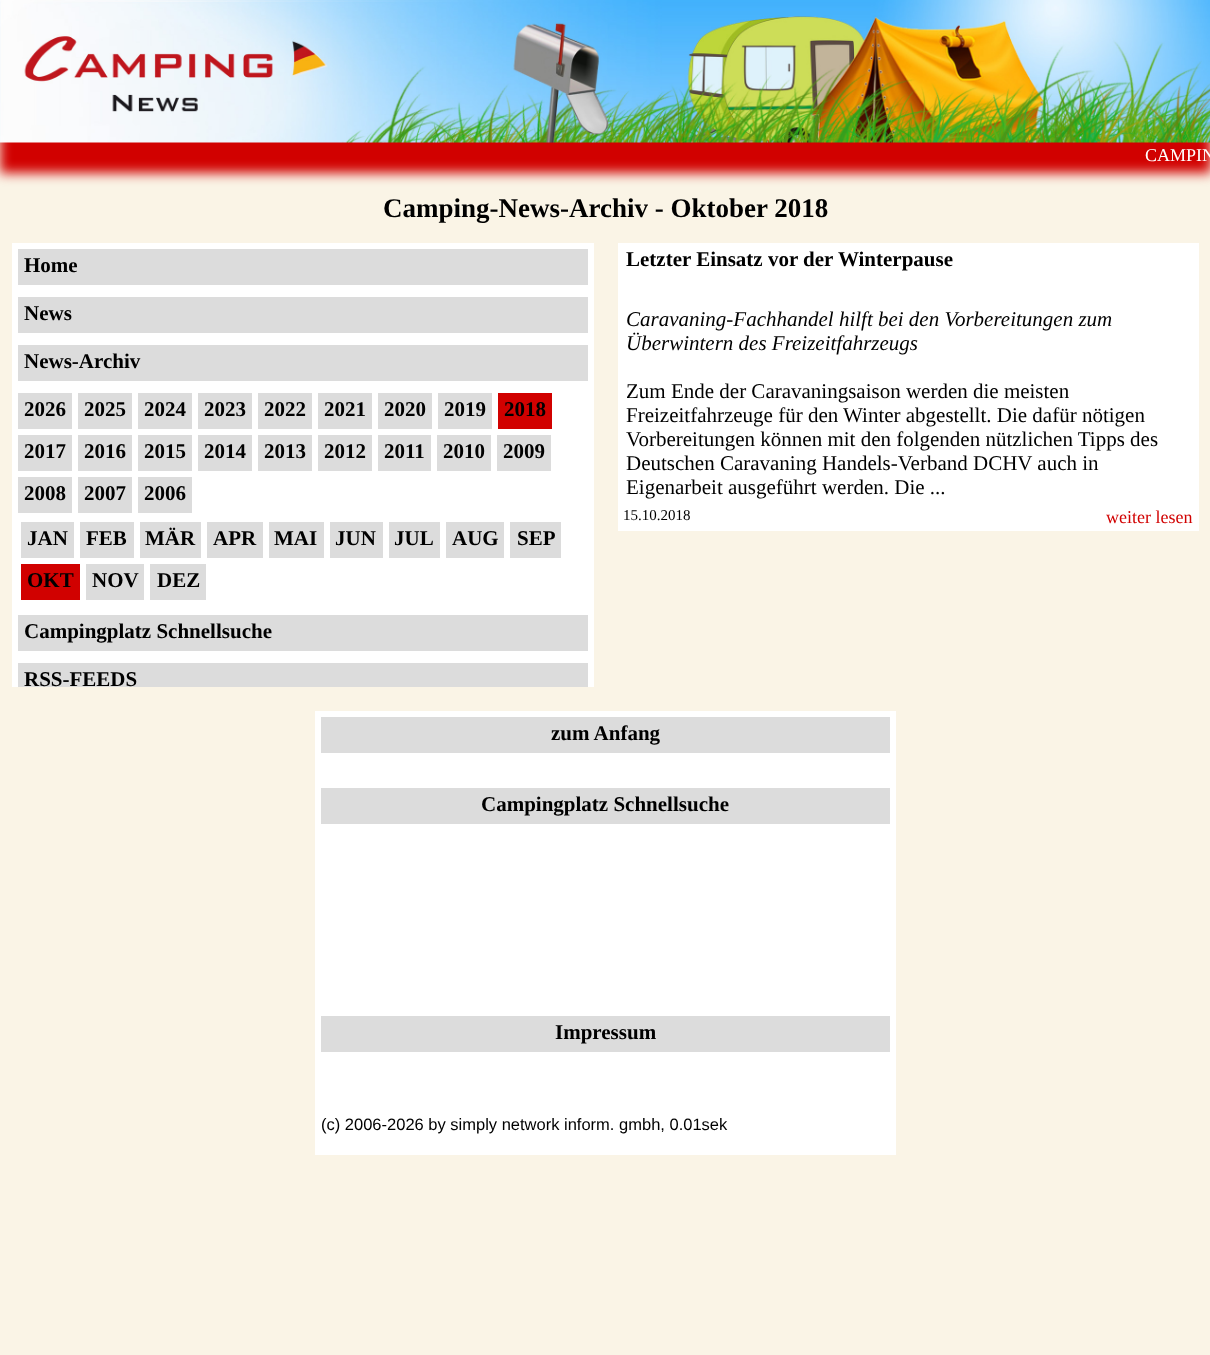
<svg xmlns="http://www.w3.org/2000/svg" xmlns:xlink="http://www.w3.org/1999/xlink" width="1210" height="1355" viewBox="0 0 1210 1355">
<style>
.cls-1{font:18px Liberation Serif;fill:#ffffff}
.cls-2{font:bold 27px Liberation Serif;fill:#000000}
.cls-3{font:bold 21px Liberation Serif;fill:#000000}
.cls-4{font:italic 21px Liberation Serif;fill:#000000}
.cls-5{font:21px Liberation Serif;fill:#000000}
.cls-6{font:15px Liberation Serif;fill:#000000}
.cls-7{font:18px Liberation Serif;fill:#d10100}
.cls-8{font:16.5px Liberation Sans;fill:#000000}
</style>
<rect width="100%" height="100%" fill="#faf4e6"/>
<rect fill="#d10100" filter="blur(6px)" x="0" y="30" width="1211" height="143"/>
<image xlink:href="image0.png" x="0" y="0" width="1210" height="143"/>
<rect fill="#ffffff" x="12" y="243" width="582" height="444"/>
<rect fill="#dcdcdc" x="18" y="249" width="570" height="36"/>
<rect fill="#dcdcdc" x="18" y="297" width="570" height="36"/>
<rect fill="#dcdcdc" x="18" y="345" width="570" height="36"/>
<rect fill="#dcdcdc" x="18" y="393" width="54" height="36"/>
<rect fill="#dcdcdc" x="78" y="393" width="54" height="36"/>
<rect fill="#dcdcdc" x="138" y="393" width="54" height="36"/>
<rect fill="#dcdcdc" x="198" y="393" width="54" height="36"/>
<rect fill="#dcdcdc" x="258" y="393" width="54" height="36"/>
<rect fill="#dcdcdc" x="318" y="393" width="54" height="36"/>
<rect fill="#dcdcdc" x="378" y="393" width="54" height="36"/>
<rect fill="#dcdcdc" x="438" y="393" width="54" height="36"/>
<rect fill="#d10100" x="498" y="393" width="54" height="36"/>
<rect fill="#dcdcdc" x="18" y="435" width="54" height="36"/>
<rect fill="#dcdcdc" x="78" y="435" width="54" height="36"/>
<rect fill="#dcdcdc" x="138" y="435" width="54" height="36"/>
<rect fill="#dcdcdc" x="198" y="435" width="54" height="36"/>
<rect fill="#dcdcdc" x="258" y="435" width="54" height="36"/>
<rect fill="#dcdcdc" x="318" y="435" width="54" height="36"/>
<rect fill="#dcdcdc" x="378" y="435" width="53" height="36"/>
<rect fill="#dcdcdc" x="437" y="435" width="54" height="36"/>
<rect fill="#dcdcdc" x="497" y="435" width="54" height="36"/>
<rect fill="#dcdcdc" x="18" y="477" width="54" height="36"/>
<rect fill="#dcdcdc" x="78" y="477" width="54" height="36"/>
<rect fill="#dcdcdc" x="138" y="477" width="54" height="36"/>
<rect fill="#dcdcdc" x="21" y="522" width="53" height="36"/>
<rect fill="#dcdcdc" x="80" y="522" width="54" height="36"/>
<rect fill="#dcdcdc" x="140" y="522" width="61" height="36"/>
<rect fill="#dcdcdc" x="207" y="522" width="56" height="36"/>
<rect fill="#dcdcdc" x="269" y="522" width="55" height="36"/>
<rect fill="#dcdcdc" x="330" y="522" width="53" height="36"/>
<rect fill="#dcdcdc" x="389" y="522" width="51" height="36"/>
<rect fill="#dcdcdc" x="446" y="522" width="58" height="36"/>
<rect fill="#dcdcdc" x="510" y="522" width="51" height="36"/>
<rect fill="#d10100" x="21" y="564" width="59" height="36"/>
<rect fill="#dcdcdc" x="86" y="564" width="58" height="36"/>
<rect fill="#dcdcdc" x="150" y="564" width="56" height="36"/>
<rect fill="#dcdcdc" x="18" y="615" width="570" height="36"/>
<rect fill="#dcdcdc" x="18" y="663" width="570" height="24"/>
<rect fill="#ffffff" x="618" y="243" width="581" height="288"/>
<rect fill="#ffffff" x="315" y="711" width="581" height="444"/>
<rect fill="#dcdcdc" x="321" y="717" width="569" height="36"/>
<rect fill="#dcdcdc" x="321" y="788" width="569" height="36"/>
<rect fill="#dcdcdc" x="321" y="1016" width="569" height="36"/>
<text class="cls-1" x="1145" y="161">CAMPIN</text>
<text class="cls-2" x="383" y="217">Camping-News-Archiv - Oktober 2018</text>
<text class="cls-3" x="24" y="272">Home</text>
<text class="cls-3" x="24" y="320">News</text>
<text class="cls-3" x="24" y="368">News-Archiv</text>
<text class="cls-3" x="24" y="416">2026</text>
<text class="cls-3" x="84" y="416">2025</text>
<text class="cls-3" x="144" y="416">2024</text>
<text class="cls-3" x="204" y="416">2023</text>
<text class="cls-3" x="264" y="416">2022</text>
<text class="cls-3" x="324" y="416">2021</text>
<text class="cls-3" x="384" y="416">2020</text>
<text class="cls-3" x="444" y="416">2019</text>
<text class="cls-3" x="504" y="416">2018</text>
<text class="cls-3" x="24" y="458">2017</text>
<text class="cls-3" x="84" y="458">2016</text>
<text class="cls-3" x="144" y="458">2015</text>
<text class="cls-3" x="204" y="458">2014</text>
<text class="cls-3" x="264" y="458">2013</text>
<text class="cls-3" x="324" y="458">2012</text>
<text class="cls-3" x="384" y="458">2011</text>
<text class="cls-3" x="443" y="458">2010</text>
<text class="cls-3" x="503" y="458">2009</text>
<text class="cls-3" x="24" y="500">2008</text>
<text class="cls-3" x="84" y="500">2007</text>
<text class="cls-3" x="144" y="500">2006</text>
<text class="cls-3" x="27" y="545">JAN</text>
<text class="cls-3" x="86" y="545">FEB</text>
<text class="cls-3" x="145" y="545">MÄR</text>
<text class="cls-3" x="213" y="545">APR</text>
<text class="cls-3" x="274" y="545">MAI</text>
<text class="cls-3" x="335" y="545">JUN</text>
<text class="cls-3" x="394" y="545">JUL</text>
<text class="cls-3" x="452" y="545">AUG</text>
<text class="cls-3" x="517" y="545">SEP</text>
<text class="cls-3" x="27" y="587">OKT</text>
<text class="cls-3" x="92" y="587">NOV</text>
<text class="cls-3" x="157" y="587">DEZ</text>
<text class="cls-3" x="24" y="638">Campingplatz Schnellsuche</text>
<text class="cls-3" x="24" y="686">RSS-FEEDS</text>
<text class="cls-3" x="626" y="266">Letzter Einsatz vor der Winterpause</text>
<text class="cls-4"><tspan x="626" y="326">Caravaning-Fachhandel hilft bei den Vorbereitungen zum</tspan><tspan x="626" y="350">Überwintern des Freizeitfahrzeugs</tspan></text>
<text class="cls-5"><tspan x="626" y="398">Zum Ende der Caravaningsaison werden die meisten</tspan><tspan x="626" y="422">Freizeitfahrzeuge für den Winter abgestellt. Die dafür nötigen</tspan><tspan x="626" y="446">Vorbereitungen können mit den folgenden nützlichen Tipps des</tspan><tspan x="626" y="470">Deutschen Caravaning Handels-Verband DCHV auch in</tspan><tspan x="626" y="494">Eigenarbeit ausgeführt werden. Die ...</tspan></text>
<text class="cls-6" x="623" y="520">15.10.2018</text>
<text class="cls-7" x="1106" y="523">weiter lesen</text>
<text class="cls-3" x="551" y="740">zum Anfang</text>
<text class="cls-3" x="481" y="811">Campingplatz Schnellsuche</text>
<text class="cls-3" x="555" y="1039">Impressum</text>
<text class="cls-8" x="321" y="1130">(c) 2006-2026 by simply network inform. gmbh, 0.01sek</text>
</svg>
